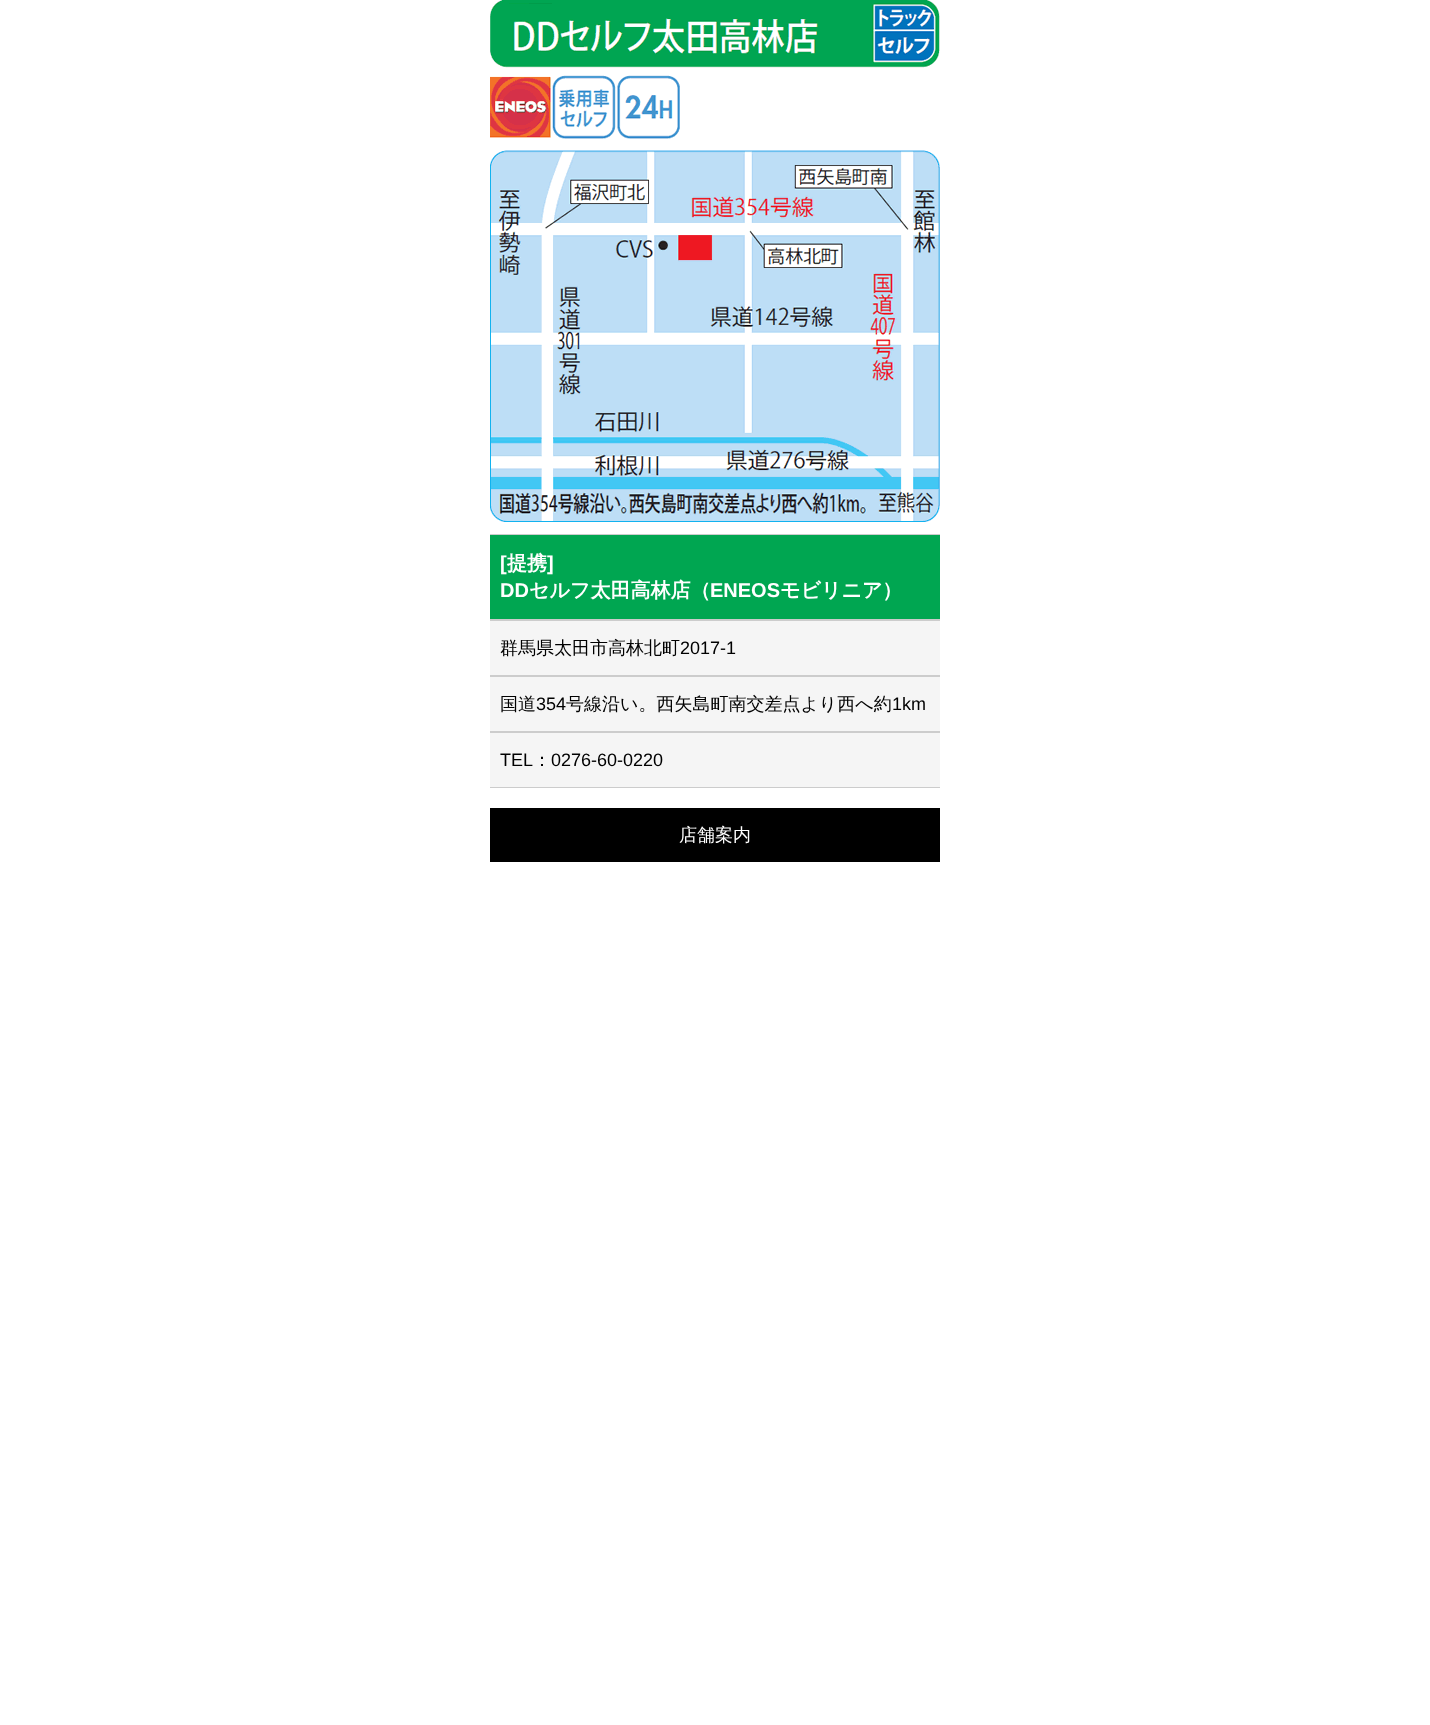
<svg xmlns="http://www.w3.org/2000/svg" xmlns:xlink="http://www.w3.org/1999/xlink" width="1430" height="1725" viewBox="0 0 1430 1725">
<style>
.cls-1{font:bold 20px Liberation Sans;fill:#ffffff}
.cls-2{font:bold 20px WenQuanYi Zen Hei;fill:#ffffff}
.cls-3{font:500 18px WenQuanYi Zen Hei;fill:#000000}
.cls-4{font:18px Liberation Sans;fill:#000000}
.cls-5{font:500 18px WenQuanYi Zen Hei;fill:#ffffff}
</style>
<rect width="100%" height="100%" fill="#ffffff"/>
<image xlink:href="image0.png" x="490" y="0" width="450" height="522"/>
<rect fill="#00a651" x="490" y="535" width="450" height="84"/>
<rect fill="#cccccc" x="490" y="534" width="450" height="1"/>
<rect fill="#cccccc" x="490" y="619" width="450" height="2"/>
<rect fill="#f5f5f5" x="490" y="621" width="450" height="54"/>
<rect fill="#cccccc" x="490" y="675" width="450" height="2"/>
<rect fill="#f5f5f5" x="490" y="677" width="450" height="54"/>
<rect fill="#cccccc" x="490" y="731" width="450" height="2"/>
<rect fill="#f5f5f5" x="490" y="733" width="450" height="54"/>
<rect fill="#cccccc" x="490" y="787" width="450" height="1"/>
<rect fill="#000000" x="490" y="808" width="450" height="54"/>
<text class="cls-1" x="500" y="570">[</text>
<text class="cls-2" x="507" y="570">提携</text>
<text class="cls-1" x="547" y="570">]</text>
<text class="cls-1" x="500" y="597">DD</text>
<text class="cls-2" x="529" y="597">セルフ太田高林店（</text>
<text class="cls-1" x="710" y="597">ENEOS</text>
<text class="cls-2" x="780" y="597">モビリニア）</text>
<text class="cls-3" x="500" y="654">群馬県太田市高林北町</text>
<text class="cls-4" x="680" y="654">2017-1</text>
<text class="cls-3" x="500" y="710">国道</text>
<text class="cls-4" x="536" y="710">354</text>
<text class="cls-3" x="566" y="710">号線沿い。西矢島町南交差点より西へ約</text>
<text class="cls-4" x="892" y="710">1km</text>
<text class="cls-4" x="500" y="766">TEL</text>
<text class="cls-3" x="533" y="766">：</text>
<text class="cls-4" x="551" y="766">0276-60-0220</text>
<text class="cls-5" x="679" y="841">店舗案内</text>
</svg>
